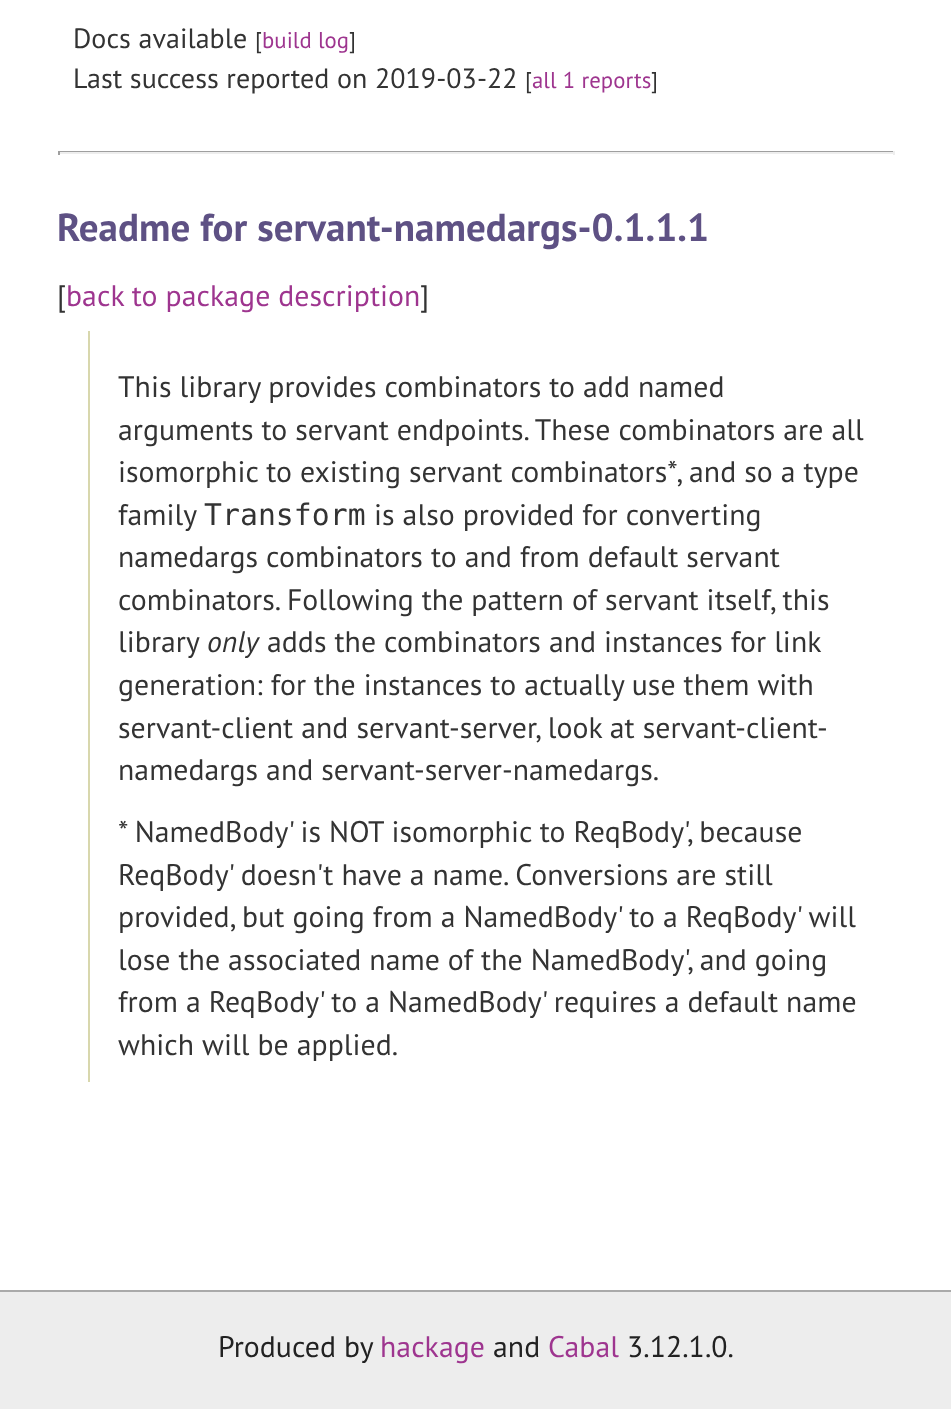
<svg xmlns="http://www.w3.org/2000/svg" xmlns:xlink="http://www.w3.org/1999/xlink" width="951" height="1409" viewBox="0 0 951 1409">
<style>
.cls-1{font:28px PT Sans;letter-spacing:0.05px;fill:#333333}
.cls-2{font:22.75px PT Sans;letter-spacing:0.05px;fill:#333333}
.cls-3{font:22.75px PT Sans;letter-spacing:0.05px;fill:#9e358f}
.cls-4{font:bold 39px PT Sans;letter-spacing:0.05px;fill:#5e5184}
.cls-5{font:29.75px PT Sans;letter-spacing:0.05px;fill:#333333}
.cls-6{font:29.75px PT Sans;letter-spacing:0.05px;fill:#9e358f}
.cls-7{font:29.75px DejaVu Sans Mono;letter-spacing:0.05px;fill:#333333}
.cls-8{font:italic 29.75px PT Sans;letter-spacing:0.05px;fill:#333333}
.cls-9{font:29.75px PT Sans;letter-spacing:0.05px;fill:#222222}
</style>
<rect width="100%" height="100%" fill="#ffffff"/>
<rect fill="#9f9f9f" x="58" y="151" width="836" height="1"/>
<rect fill="#eeeeee" x="893" y="151" width="2" height="4"/>
<rect fill="#eeeeee" x="58" y="152" width="836" height="2"/>
<rect fill="#9f9f9f" x="58" y="151" width="2" height="4"/>
<rect fill="#d8d7ad" x="88" y="331" width="2" height="751"/>
<rect fill="#ededed" x="0" y="1292" width="951" height="117"/>
<rect fill="#aaaaaa" x="0" y="1290" width="951" height="2"/>
<text class="cls-1" x="73" y="48">Docs available</text>
<text class="cls-2" x="255" y="48">[</text>
<text class="cls-3" x="262" y="48">build log</text>
<text class="cls-2" x="349" y="48">]</text>
<text class="cls-1" x="73" y="88">Last success reported on 2019-03-22</text>
<text class="cls-2" x="525" y="88">[</text>
<text class="cls-3" x="532" y="88">all 1 reports</text>
<text class="cls-2" x="651" y="88">]</text>
<text class="cls-4" x="57" y="241">Readme for servant-namedargs-0.1.1.1</text>
<text class="cls-5" x="57" y="306">[</text>
<text class="cls-6" x="66" y="306">back to package description</text>
<text class="cls-5" x="420" y="306">]</text>
<text class="cls-5"><tspan x="118" y="397">This library provides combinators to add named</tspan><tspan x="118" y="440">arguments to servant endpoints. These combinators are all</tspan><tspan x="118" y="482">isomorphic to existing servant combinators*, and so a type</tspan><tspan x="118" y="525">family</tspan></text>
<text class="cls-7" x="204" y="525">Transform</text>
<text class="cls-5" x="374" y="525">is also provided for converting</text>
<text class="cls-5"><tspan x="118" y="567">namedargs combinators to and from default servant</tspan><tspan x="118" y="610">combinators. Following the pattern of servant itself, this</tspan><tspan x="118" y="652">library</tspan></text>
<text class="cls-8" x="207" y="652">only</text>
<text class="cls-5" x="267" y="652">adds the combinators and instances for link</text>
<text class="cls-5"><tspan x="118" y="695">generation: for the instances to actually use them with</tspan><tspan x="118" y="738">servant-client and servant-server, look at servant-client-</tspan><tspan x="118" y="780">namedargs and servant-server-namedargs.</tspan></text>
<text class="cls-5"><tspan x="118" y="842">* NamedBody' is NOT isomorphic to ReqBody', because</tspan><tspan x="118" y="885">ReqBody' doesn't have a name. Conversions are still</tspan><tspan x="118" y="927">provided, but going from a NamedBody' to a ReqBody' will</tspan><tspan x="118" y="970">lose the associated name of the NamedBody', and going</tspan><tspan x="118" y="1012">from a ReqBody' to a NamedBody' requires a default name</tspan><tspan x="118" y="1055">which will be applied.</tspan></text>
<text class="cls-9" x="218" y="1357">Produced by</text>
<text class="cls-6" x="380" y="1357">hackage</text>
<text class="cls-9" x="493" y="1357">and</text>
<text class="cls-6" x="548" y="1357">Cabal</text>
<text class="cls-9" x="627" y="1357">3.12.1.0.</text>
</svg>
